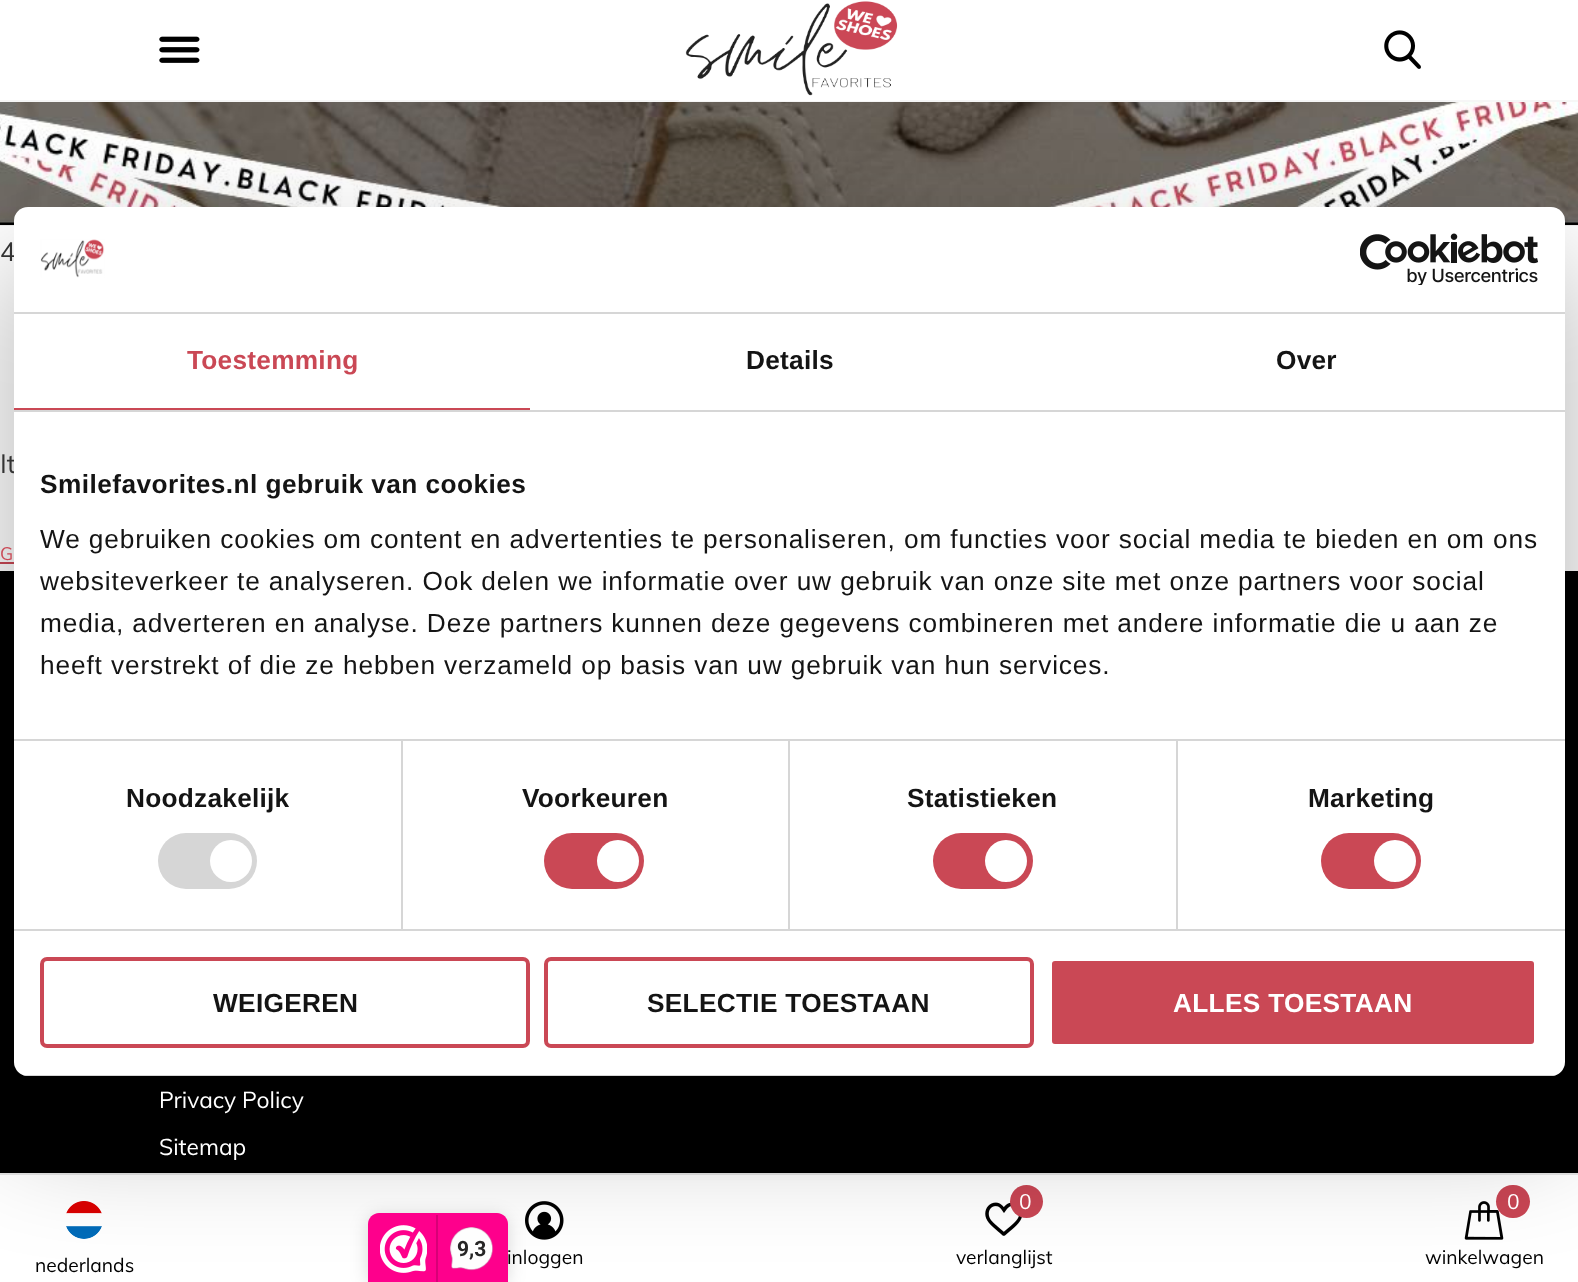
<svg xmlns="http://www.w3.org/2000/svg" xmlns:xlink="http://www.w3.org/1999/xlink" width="1578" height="1282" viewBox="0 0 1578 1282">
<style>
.cls-1{font:26.25px Muli;fill:#333333}
.cls-2{font:18px Muli;fill:#ca4855}
.cls-3{font:22.75px Muli;fill:#ffffff}
.cls-4{font:19.25px Muli;fill:#000000}
.cls-5{font:21px Muli;fill:#ffffff}
.cls-6{font:bold 26.25px Liberation Sans;letter-spacing:0.25px;fill:#ca4855}
.cls-7{font:bold 26.25px Liberation Sans;letter-spacing:0.25px;fill:#141414}
.cls-8{font:bold 26.25px Liberation Sans;letter-spacing:0.45px;fill:#141414}
.cls-9{font:26.25px Liberation Sans;letter-spacing:0.88px;fill:#141414}
.cls-10{font:bold 26.25px Liberation Sans;letter-spacing:0.3px;fill:#141414}
.cls-11{font:bold 26.25px Liberation Sans;letter-spacing:0.3px;fill:#ffffff}
.cls-12{font:bold 21px Roboto;fill:#272626}
</style>
<defs>
<clipPath id="clip1"><rect x="14" y="207" width="1551" height="869" rx="14"/></clipPath>
</defs>
<rect width="100%" height="100%" fill="#ffffff"/>
<image xlink:href="image0.png" x="159" y="36" width="41" height="27"/>
<rect fill="#f6f6f6" x="0" y="100" width="1578" height="2"/>
<image xlink:href="image1.png" x="679" y="1" width="221" height="100"/>
<image xlink:href="image2.png" x="1384" y="30" width="37" height="39"/>
<image xlink:href="image3.png" x="0" y="102" width="1578" height="124"/>
<rect fill="#ca4855" x="0" y="562" width="14" height="2"/>
<rect fill="#000000" x="0" y="571" width="1578" height="602"/>
<rect fill="#e5e5e5" x="0" y="1173" width="1578" height="2"/>
<image xlink:href="image4.png" x="66" y="1201" width="36" height="38"/>
<image xlink:href="image5.png" x="525" y="1201" width="39" height="39"/>
<image xlink:href="image6.png" x="985" y="1202" width="37" height="34"/>
<circle fill="#c94654" cx="1026.5" cy="1201.5" r="16.5"/>
<image xlink:href="image7.png" x="1464" y="1201" width="40" height="39"/>
<rect fill="#c94654" x="1496" y="1185" width="34" height="33" rx="16.5"/>
<rect fill="#000000" fill-opacity="0.3" filter="blur(59.5px)" x="14" y="263" width="1551" height="869" rx="14"/>
<rect fill="#000000" fill-opacity="0.15" filter="blur(9px)" x="368" y="1216" width="140" height="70" rx="11"/>
<path fill="#fe008c" d="M379 1213H497C503 1213 508 1218 508 1224V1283H368V1224C368 1218 373 1213 379 1213Z"/>
<image xlink:href="image10.png" x="380" y="1225" width="47" height="48"/>
<rect fill="#d80077" x="436" y="1215" width="2" height="67"/>
<image xlink:href="image11.png" x="450" y="1227" width="44" height="44"/>
<text class="cls-1" x="0" y="261">4</text>
<text class="cls-1" x="0" y="473">It</text>
<text class="cls-2" x="0" y="560">G</text>
<text class="cls-3" x="159" y="1108">Privacy Policy</text>
<text class="cls-3" x="159" y="1155">Sitemap</text>
<text class="cls-4" x="35" y="1272">nederlands</text>
<text class="cls-4" x="507" y="1264">inloggen</text>
<text class="cls-5" x="1019" y="1209">0</text>
<text class="cls-4" x="956" y="1264">verlanglijst</text>
<text class="cls-5" x="1507" y="1209">0</text>
<text class="cls-4" x="1425" y="1264">winkelwagen</text>
<rect fill="#ffffff" x="14" y="207" width="1551" height="869" rx="14"/>
<rect fill="#d6d6d6" x="14" y="312" width="1551" height="2"/>
<image xlink:href="image8.png" x="40" y="239" width="65" height="39"/>
<image xlink:href="image9.png" x="1360" y="233" width="178" height="52"/>
<rect fill="#d6d6d6" x="14" y="410" width="1551" height="2"/>
<rect fill="#ca4855" x="14" y="408" width="516" height="2"/>
<text class="cls-6" x="187" y="369">Toestemming</text>
<text class="cls-7" x="746" y="369">Details</text>
<text class="cls-7" x="1276" y="369">Over</text>
<text class="cls-8" x="40" y="493">Smilefavorites.nl gebruik van cookies</text>
<text class="cls-9"><tspan x="40" y="548">We gebruiken cookies om content en advertenties te personaliseren, om functies voor social media te bieden en om ons</tspan><tspan x="40" y="590">websiteverkeer te analyseren. Ook delen we informatie over uw gebruik van onze site met onze partners voor social</tspan><tspan x="40" y="632">media, adverteren en analyse. Deze partners kunnen deze gegevens combineren met andere informatie die u aan ze</tspan><tspan x="40" y="674">heeft verstrekt of die ze hebben verzameld op basis van uw gebruik van hun services.</tspan></text>
<rect fill="#d6d6d6" x="14" y="929" width="1551" height="2"/>
<rect fill="#d6d6d6" x="401" y="740" width="2" height="189"/>
<text class="cls-7" x="126" y="807">Noodzakelijk</text>
<rect fill="#d6d6d6" x="158" y="833" width="99" height="56" rx="28"/>
<circle fill="#ffffff" cx="231" cy="861" r="21"/>
<rect fill="#d6d6d6" x="788" y="740" width="2" height="189"/>
<text class="cls-7" x="522" y="807">Voorkeuren</text>
<rect fill="#ca4855" x="544" y="833" width="100" height="56" rx="28"/>
<circle fill="#ffffff" cx="618" cy="861" r="21"/>
<rect fill="#d6d6d6" x="1176" y="740" width="2" height="189"/>
<rect fill="#d6d6d6" x="14" y="739" width="1551" height="2"/>
<text class="cls-7" x="907" y="807">Statistieken</text>
<rect fill="#ca4855" x="933" y="833" width="100" height="56" rx="28"/>
<circle fill="#ffffff" cx="1006" cy="861" r="21"/>
<text class="cls-7" x="1308" y="807">Marketing</text>
<rect fill="#ca4855" x="1321" y="833" width="100" height="56" rx="28"/>
<circle fill="#ffffff" cx="1395" cy="861" r="21"/>
<g clip-path="url(#clip1)">
<rect fill="#d6d6d6" x="23" y="1075" width="1533" height="1"/>
</g>
<rect fill="none" stroke="#ca4855" stroke-width="4" x="42" y="959" width="486" height="87" rx="5"/>
<text class="cls-10" x="213" y="1012">WEIGEREN</text>
<rect fill="none" stroke="#ca4855" stroke-width="4" x="546" y="959" width="486" height="87" rx="5"/>
<text class="cls-10" x="647" y="1012">SELECTIE TOESTAAN</text>
<rect fill="#ca4855" stroke="#ffffff" stroke-width="4" x="1050" y="959" width="486" height="87" rx="5"/>
<text class="cls-11" x="1173" y="1012">ALLES TOESTAAN</text>
<text class="cls-12" x="457" y="1256">9,3</text>
</svg>
